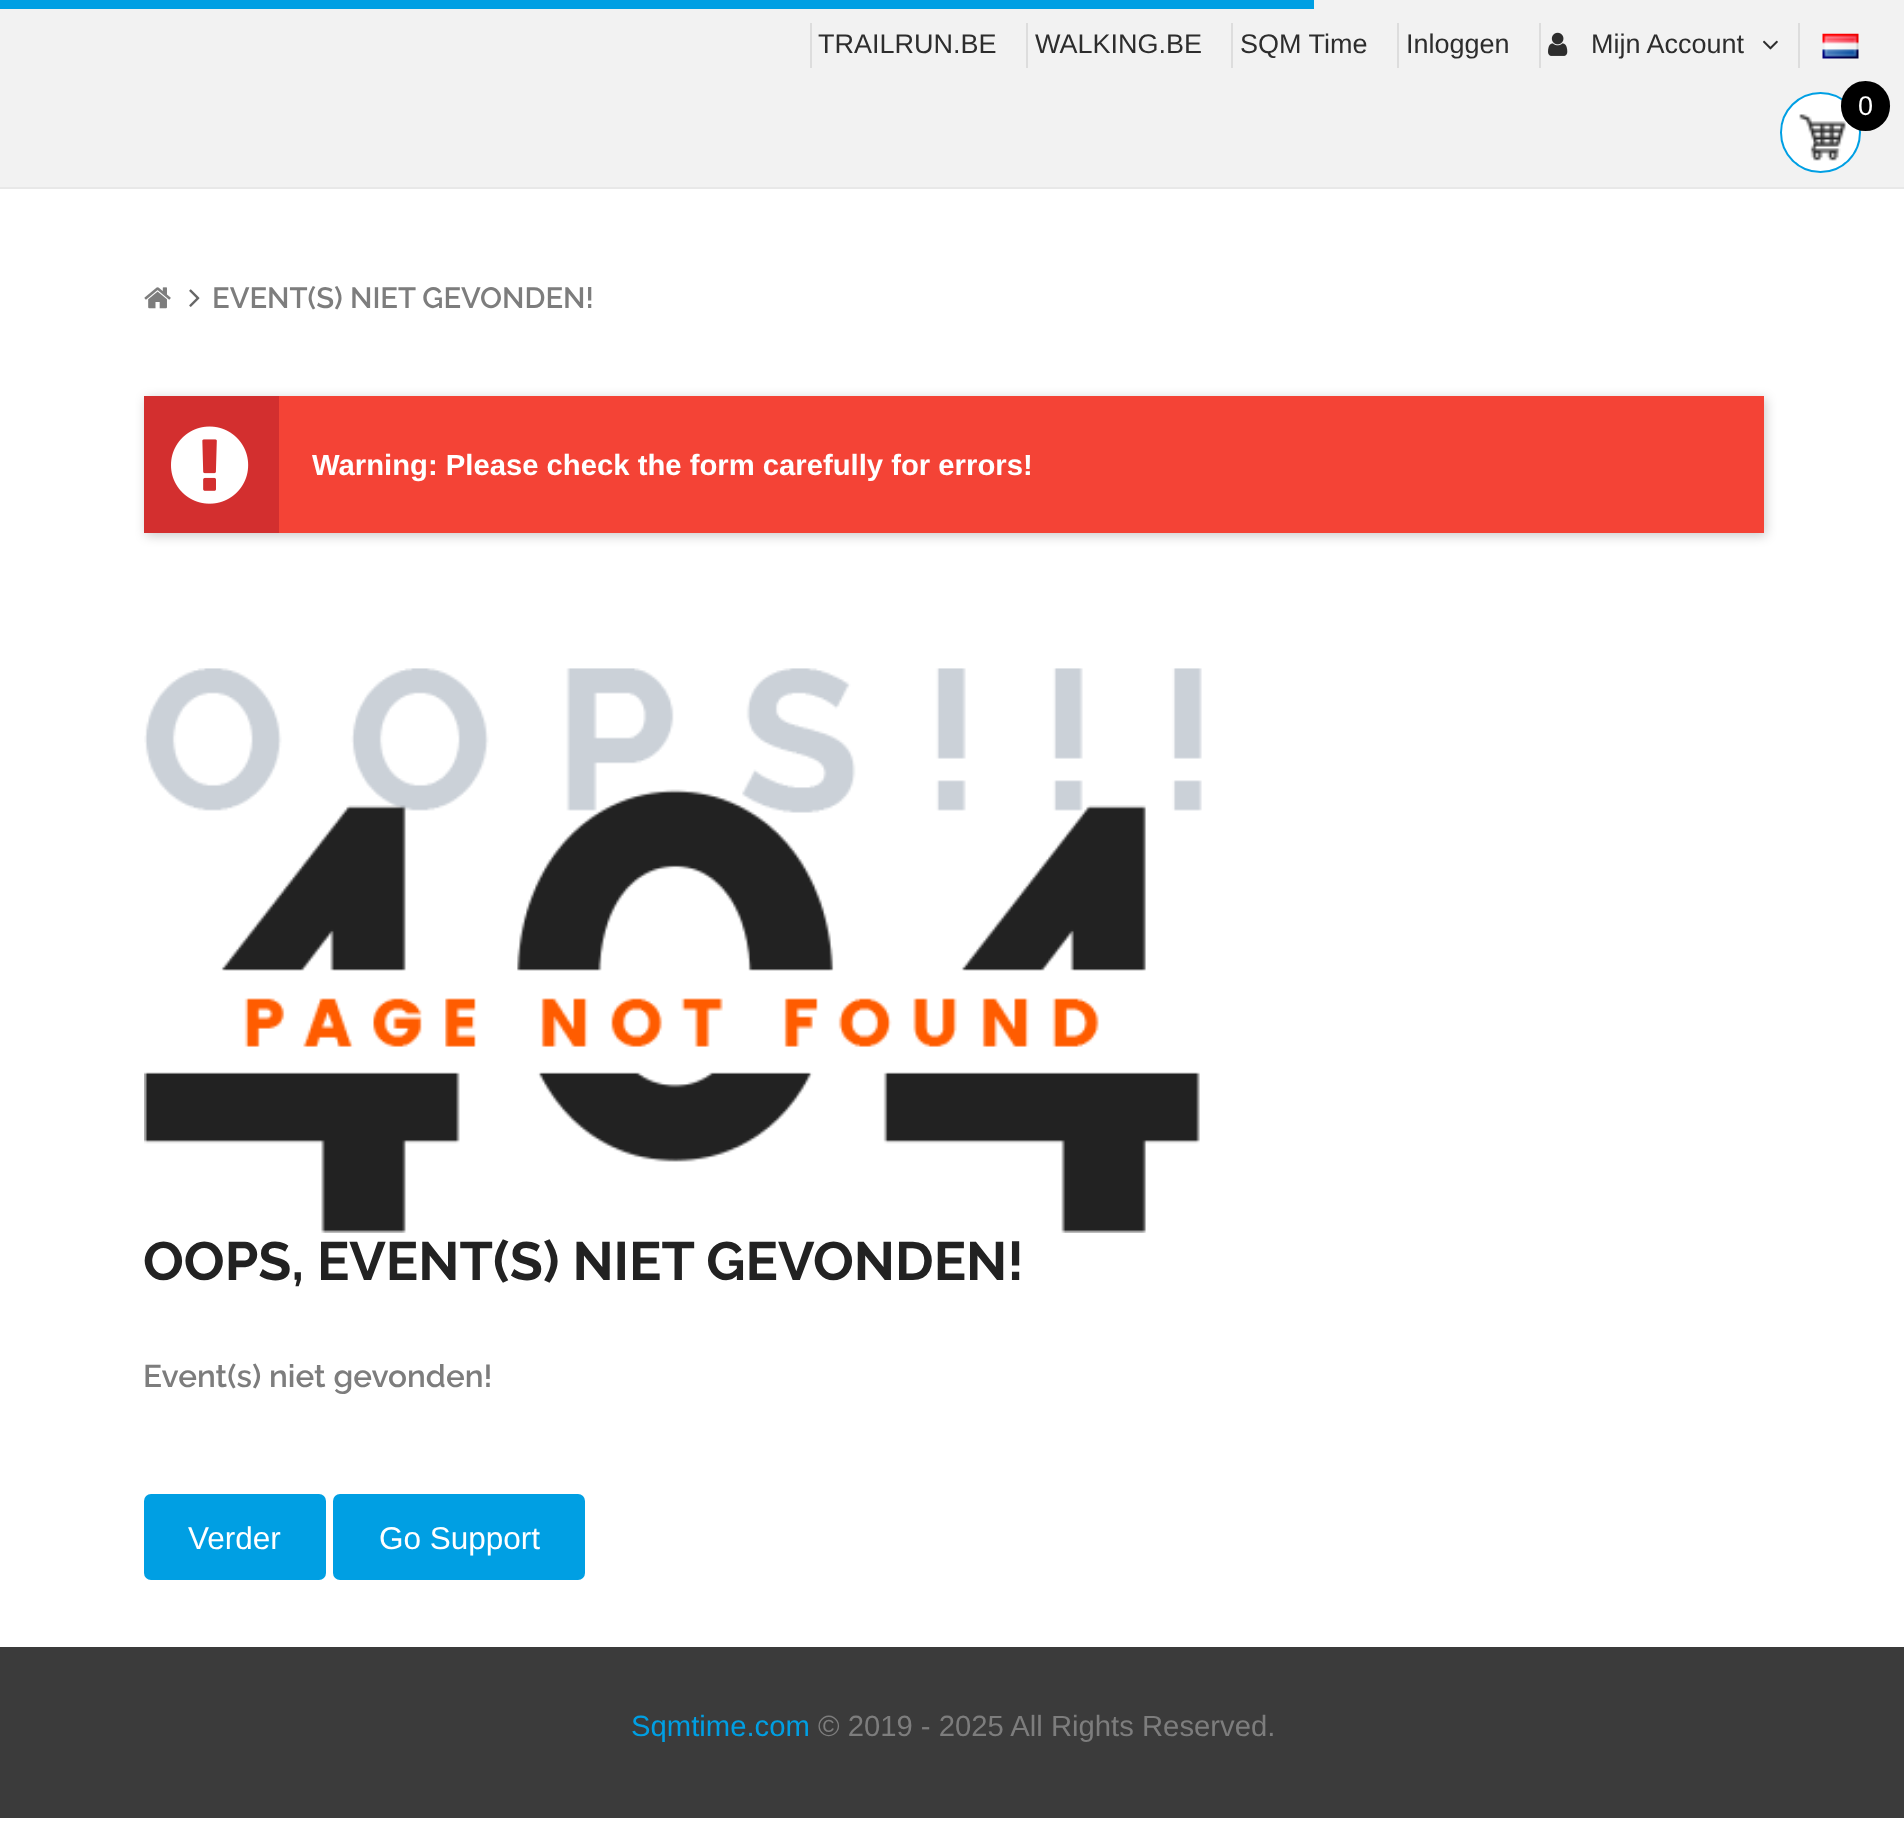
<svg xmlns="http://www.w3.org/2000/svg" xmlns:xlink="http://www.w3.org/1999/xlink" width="1904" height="1837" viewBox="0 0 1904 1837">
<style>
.cls-1{font:27px Liberation Sans;fill:#2d2d2d}
.cls-2{font:27px Liberation Sans;fill:#ffffff}
.cls-3{font:600 29.25px Raleway;fill:#7d7d7d}
.cls-4{font:bold 29.25px Liberation Sans;fill:#ffffff}
.cls-5{font:bold 54px Raleway;fill:#222222}
.cls-6{font:600 31.5px Raleway;fill:#7d7d7d}
.cls-7{font:31.5px Liberation Sans;fill:#ffffff}
.cls-8{font:29.25px Liberation Sans;fill:#009fe3}
.cls-9{font:29.25px Liberation Sans;fill:#7d7d7d}
</style>
<rect width="100%" height="100%" fill="#ffffff"/>
<rect fill="#f2f2f2" x="0" y="0" width="1904" height="187"/>
<rect fill="#009fe3" x="0" y="0" width="1314" height="9"/>
<rect fill="#e8e8e8" x="0" y="187" width="1904" height="2"/>
<rect fill="#dddddd" x="810" y="23" width="2" height="45"/>
<rect fill="#dddddd" x="1026" y="23" width="2" height="45"/>
<rect fill="#dddddd" x="1231" y="23" width="2" height="45"/>
<rect fill="#dddddd" x="1397" y="23" width="2" height="45"/>
<rect fill="#dddddd" x="1539" y="23" width="2" height="45"/>
<image xlink:href="image0.png" x="1548" y="32" width="20" height="24"/>
<image xlink:href="image1.png" x="1763" y="40" width="15" height="10"/>
<rect fill="#dddddd" x="1798" y="23" width="2" height="45"/>
<image xlink:href="image2.png" x="1822" y="33" width="37" height="26"/>
<circle fill="#ffffff" cx="1820.5" cy="132.5" r="40.5"/>
<image xlink:href="image3.png" x="1799" y="114" width="47" height="47"/>
<circle fill="none" stroke="#009fe3" stroke-width="2" cx="1820.5" cy="132.5" r="39.5"/>
<rect fill="#000000" x="1841" y="81" width="49" height="50" rx="24.5"/>
<image xlink:href="image4.png" x="144" y="287" width="27" height="22"/>
<image xlink:href="image5.png" x="189" y="289" width="11" height="18"/>
<rect fill="#000000" fill-opacity="0.2" filter="blur(5.5px)" x="146" y="398" width="1620" height="138"/>
<rect fill="#f44336" x="279" y="396" width="1485" height="137"/>
<rect fill="#d32f2f" x="144" y="396" width="135" height="137"/>
<image xlink:href="image6.png" x="171" y="426" width="78" height="78"/>
<image xlink:href="image7.png" x="144" y="668" width="1058" height="565"/>
<rect fill="#009fe3" x="144" y="1494" width="182" height="86" rx="7"/>
<rect fill="#009fe3" x="333" y="1494" width="252" height="86" rx="7"/>
<rect fill="#3b3b3b" x="0" y="1647" width="1904" height="171"/>
<text class="cls-1" x="818" y="53">TRAILRUN.BE</text>
<text class="cls-1" x="1035" y="53">WALKING.BE</text>
<text class="cls-1" x="1240" y="53">SQM Time</text>
<text class="cls-1" x="1406" y="53">Inloggen</text>
<text class="cls-1" x="1591" y="53">Mijn Account</text>
<text class="cls-2" x="1858" y="115">0</text>
<text class="cls-3" x="212" y="308">EVENT(S) NIET GEVONDEN!</text>
<text class="cls-4" x="312" y="475">Warning: Please check the form carefully for errors!</text>
<text class="cls-5" x="143" y="1280">OOPS, EVENT(S) NIET GEVONDEN!</text>
<text class="cls-6" x="143" y="1387">Event(s) niet gevonden!</text>
<text class="cls-7" x="188" y="1549">Verder</text>
<text class="cls-7" x="379" y="1549">Go Support</text>
<text class="cls-8" x="631" y="1736">Sqmtime.com</text>
<text class="cls-9" x="818" y="1736">© 2019 - 2025 All Rights Reserved.</text>
</svg>
